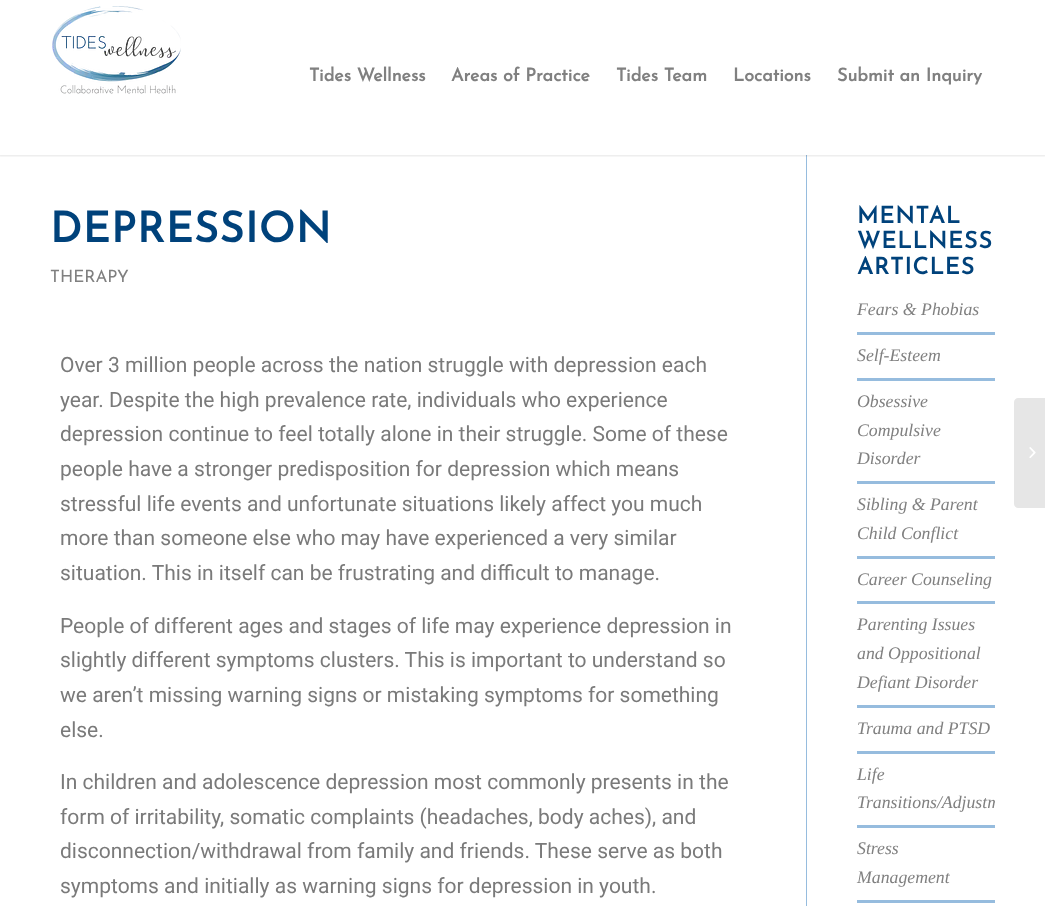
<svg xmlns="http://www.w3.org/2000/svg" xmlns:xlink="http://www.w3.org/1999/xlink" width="1045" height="906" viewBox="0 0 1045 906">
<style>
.cls-1{font:bold 18px Josefin Sans;fill:#808080}
.cls-2{font:bold 42px Josefin Sans;letter-spacing:1px;fill:#00427b}
.cls-3{font:100 17px Josefin Sans;fill:#808080}
.cls-4{font:21px Roboto;fill:#7a7a7a}
.cls-5{font:bold 23px Josefin Sans;letter-spacing:1px;fill:#00427b}
.cls-6{font:italic 17.75px Liberation Serif;fill:#808080}
</style>
<defs>
<clipPath id="clip1"><rect x="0" y="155" width="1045" height="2"/></clipPath>
<clipPath id="clip2"><rect x="807" y="155" width="188" height="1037"/></clipPath>
</defs>
<rect width="100%" height="100%" fill="#ffffff"/>
<rect fill="#96bcde" x="806" y="155" width="1" height="751"/>
<g clip-path="url(#clip1)">
<rect fill="#000000" fill-opacity="0.1" filter="blur(1px)" x="-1" y="-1" width="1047" height="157"/>
</g>
<image xlink:href="image0.png" x="52" y="6" width="129" height="88"/>
<rect fill="#96bcde" x="857" y="332" width="138" height="3"/>
<rect fill="#96bcde" x="857" y="378" width="138" height="3"/>
<rect fill="#96bcde" x="857" y="481" width="138" height="3"/>
<rect fill="#96bcde" x="857" y="556" width="138" height="3"/>
<rect fill="#96bcde" x="857" y="601" width="138" height="3"/>
<rect fill="#96bcde" x="857" y="705" width="138" height="3"/>
<rect fill="#96bcde" x="857" y="751" width="138" height="3"/>
<rect fill="#96bcde" x="857" y="825" width="138" height="3"/>
<rect fill="#96bcde" x="857" y="900" width="138" height="3"/>
<path fill="#e6e6e6" d="M1018 398H1045V508H1018C1016 508 1014 506 1014 504V402C1014 400 1016 398 1018 398Z"/>
<image xlink:href="image1.png" x="1029" y="447" width="7" height="11"/>
<text class="cls-1" x="309" y="81">Tides Wellness</text>
<text class="cls-1" x="451" y="81">Areas of Practice</text>
<text class="cls-1" x="616" y="81">Tides Team</text>
<text class="cls-1" x="733" y="81">Locations</text>
<text class="cls-1" x="837" y="81">Submit an Inquiry</text>
<text class="cls-2" x="50" y="242">DEPRESSION</text>
<text class="cls-3" x="50" y="282">THERAPY</text>
<text class="cls-4"><tspan x="60" y="372">Over 3 million people across the nation struggle with depression each</tspan><tspan x="60" y="407">year. Despite the high prevalence rate, individuals who experience</tspan><tspan x="60" y="441">depression continue to feel totally alone in their struggle. Some of these</tspan><tspan x="60" y="476">people have a stronger predisposition for depression which means</tspan><tspan x="60" y="511">stressful life events and unfortunate situations likely affect you much</tspan><tspan x="60" y="545">more than someone else who may have experienced a very similar</tspan><tspan x="60" y="580">situation. This in itself can be frustrating and difficult to manage.</tspan></text>
<text class="cls-4"><tspan x="60" y="633">People of different ages and stages of life may experience depression in</tspan><tspan x="60" y="667">slightly different symptoms clusters. This is important to understand so</tspan><tspan x="60" y="702">we aren’t missing warning signs or mistaking symptoms for something</tspan><tspan x="60" y="737">else.</tspan></text>
<text class="cls-4"><tspan x="60" y="789">In children and adolescence depression most commonly presents in the</tspan><tspan x="60" y="824">form of irritability, somatic complaints (headaches, body aches), and</tspan><tspan x="60" y="858">disconnection/withdrawal from family and friends. These serve as both</tspan><tspan x="60" y="893">symptoms and initially as warning signs for depression in youth.</tspan></text>
<text class="cls-5"><tspan x="857" y="223">MENTAL</tspan><tspan x="857" y="248">WELLNESS</tspan><tspan x="857" y="274">ARTICLES</tspan></text>
<text class="cls-6" x="857" y="315">Fears &amp; Phobias</text>
<text class="cls-6" x="857" y="361">Self-Esteem</text>
<text class="cls-6"><tspan x="857" y="407">Obsessive</tspan><tspan x="857" y="436">Compulsive</tspan><tspan x="857" y="464">Disorder</tspan></text>
<text class="cls-6"><tspan x="857" y="510">Sibling &amp; Parent</tspan><tspan x="857" y="539">Child Conflict</tspan></text>
<text class="cls-6" x="857" y="585">Career Counseling</text>
<text class="cls-6"><tspan x="857" y="630">Parenting Issues</tspan><tspan x="857" y="659">and Oppositional</tspan><tspan x="857" y="688">Defiant Disorder</tspan></text>
<text class="cls-6" x="857" y="734">Trauma and PTSD</text>
<text class="cls-6" x="857" y="780">Life</text>
<g clip-path="url(#clip2)">
<text class="cls-6" x="857" y="808">Transitions/Adjustm</text>
</g>
<text class="cls-6"><tspan x="857" y="854">Stress</tspan><tspan x="857" y="883">Management</tspan></text>
</svg>
